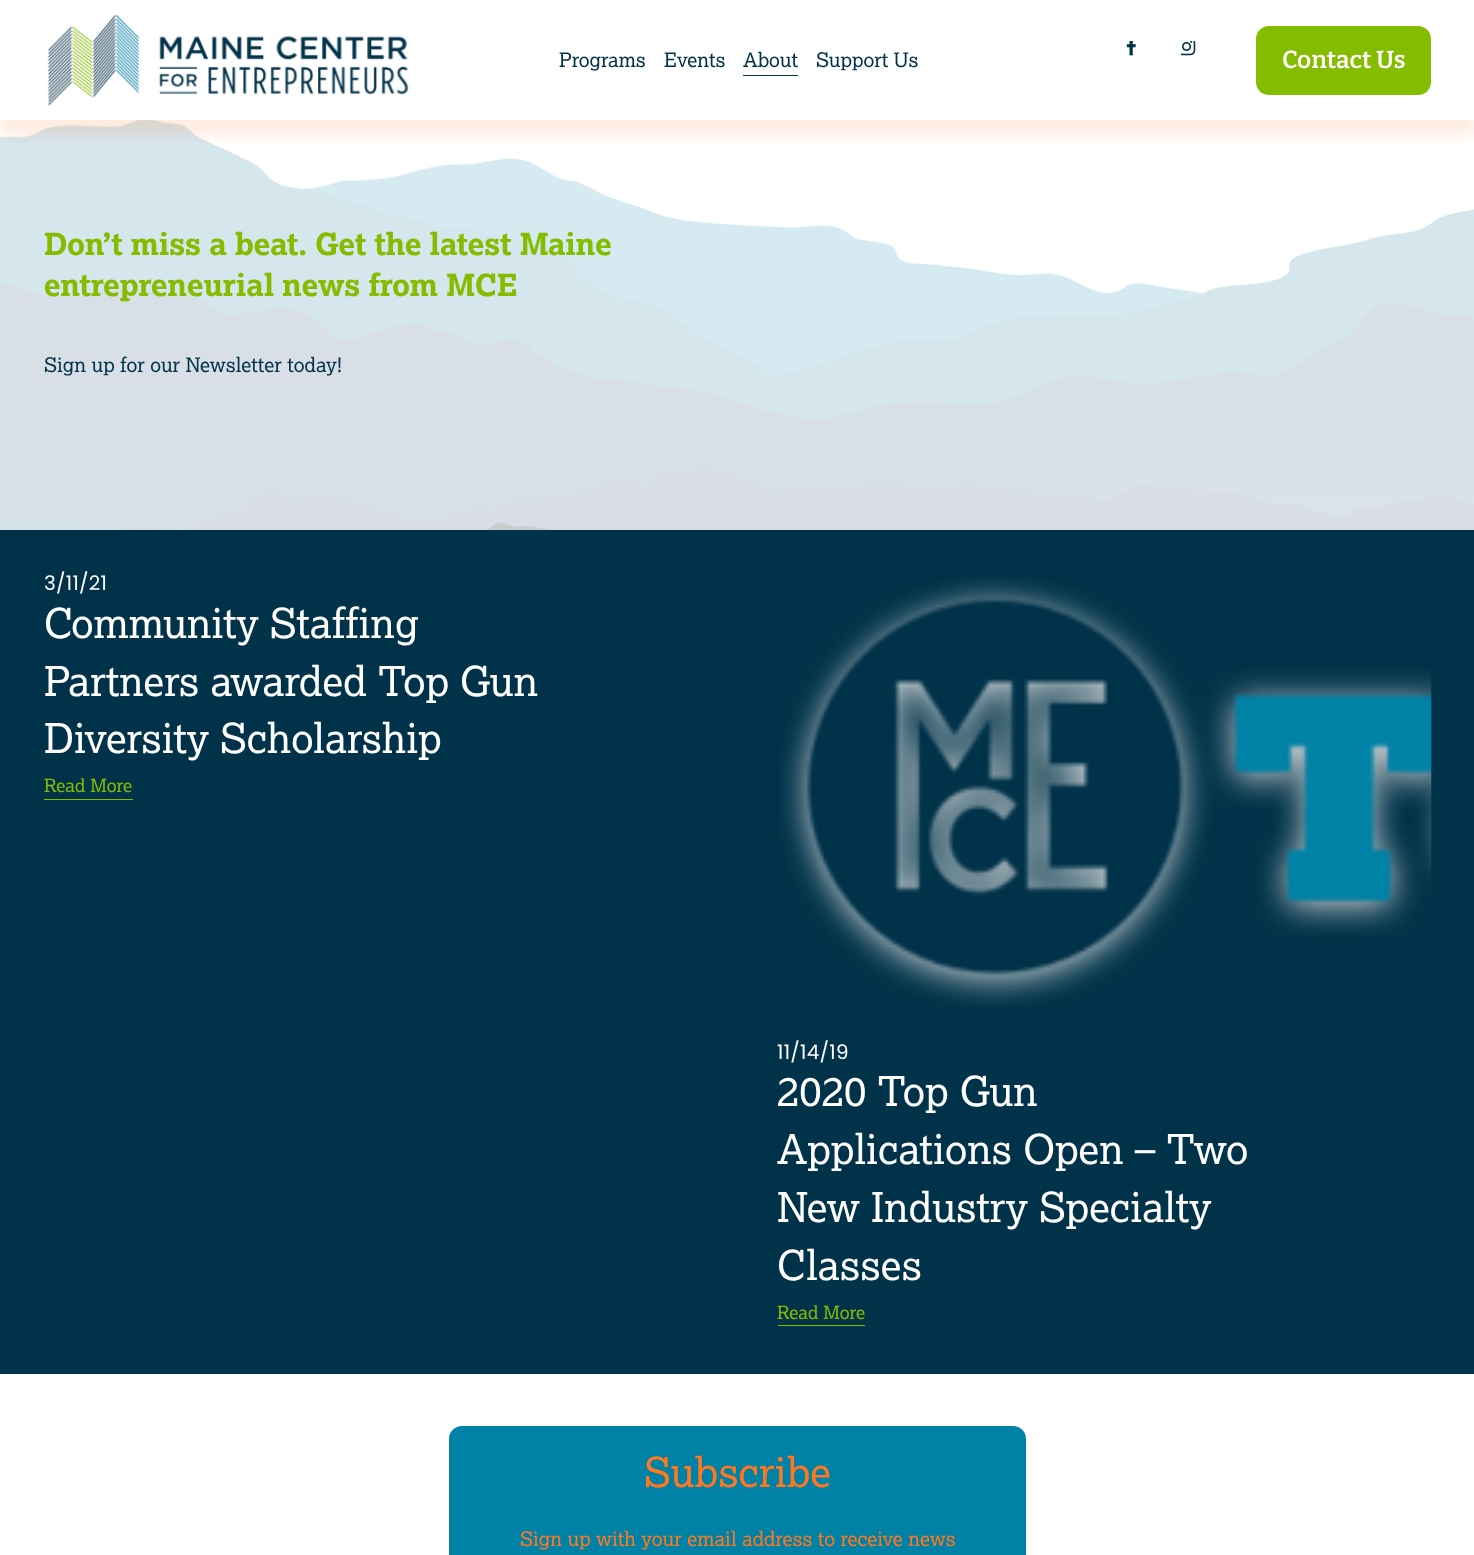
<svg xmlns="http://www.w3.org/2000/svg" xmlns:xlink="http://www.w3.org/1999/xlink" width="1474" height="1555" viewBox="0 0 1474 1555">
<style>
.cls-1{font:20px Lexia;fill:#003349}
.cls-2{font:100 24.5px Bitter;fill:#ffffff}
.cls-3{font:bold 30.6px Lexia;fill:#84bd00}
.cls-4{font:20px Poppins;letter-spacing:0.25px;fill:#ffffff}
.cls-5{font:41.25px Lexia;fill:#ffffff}
.cls-6{font:18.25px Lexia;fill:#84bd00}
.cls-7{font:41.25px Lexia;fill:#ff781f}
.cls-8{font:20px Lexia;fill:#ff781f}
</style>
<defs>
<clipPath id="clip1"><rect x="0" y="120" width="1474" height="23"/></clipPath>
</defs>
<rect width="100%" height="100%" fill="#ffffff"/>
<image xlink:href="image3.png" x="0" y="118" width="1474" height="412"/>
<g clip-path="url(#clip1)">
<rect fill="#ff781f" fill-opacity="0.15" filter="blur(7.5px)" x="0" y="15" width="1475" height="120"/>
</g>
<rect fill="#ffffff" fill-opacity="0.94" x="146" y="118" width="5" height="1"/>
<rect fill="none" stroke="#ffffff" x="0.5" y="0.5" width="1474" height="119"/>
<image xlink:href="image0.png" x="47" y="14" width="362" height="92"/>
<rect fill="#003349" x="743" y="75" width="55" height="1"/>
<image xlink:href="image1.png" x="1126" y="41" width="10" height="15"/>
<image xlink:href="image2.png" x="1181" y="41" width="15" height="15"/>
<rect fill="#84bd00" x="1256" y="26" width="175" height="69" rx="13"/>
<rect fill="#003349" x="0" y="530" width="1474" height="844"/>
<rect fill="#84bd00" x="44" y="799" width="89" height="1"/>
<image xlink:href="image4.png" x="780" y="577" width="652" height="430"/>
<rect fill="#84bd00" x="778" y="1325" width="87" height="1"/>
<rect fill="#0081a6" x="449" y="1426" width="577" height="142" rx="13"/>
<text class="cls-1" x="559" y="67">Programs</text>
<text class="cls-1" x="664" y="67">Events</text>
<text class="cls-1" x="743" y="67">About</text>
<text class="cls-1" x="816" y="67">Support Us</text>
<text class="cls-2" x="1282" y="68">Contact Us</text>
<text class="cls-3"><tspan x="44" y="255">Don’t miss a beat. Get the latest Maine</tspan><tspan x="44" y="296">entrepreneurial news from MCE</tspan></text>
<text class="cls-1" x="44" y="372">Sign up for our Newsletter today!</text>
<text class="cls-4" x="44" y="590">3/11/21</text>
<text class="cls-5"><tspan x="44" y="638">Community Staffing</tspan><tspan x="44" y="696">Partners awarded Top Gun</tspan><tspan x="44" y="753">Diversity Scholarship</tspan></text>
<text class="cls-6" x="44" y="792">Read More</text>
<text class="cls-4" x="777" y="1059">11/14/19</text>
<text class="cls-5"><tspan x="777" y="1106">2020 Top Gun</tspan><tspan x="777" y="1164">Applications Open – Two</tspan><tspan x="777" y="1222">New Industry Specialty</tspan><tspan x="777" y="1280">Classes</tspan></text>
<text class="cls-6" x="777" y="1319">Read More</text>
<text class="cls-7" x="644" y="1487">Subscribe</text>
<text class="cls-8" x="520" y="1546">Sign up with your email address to receive news</text>
</svg>
